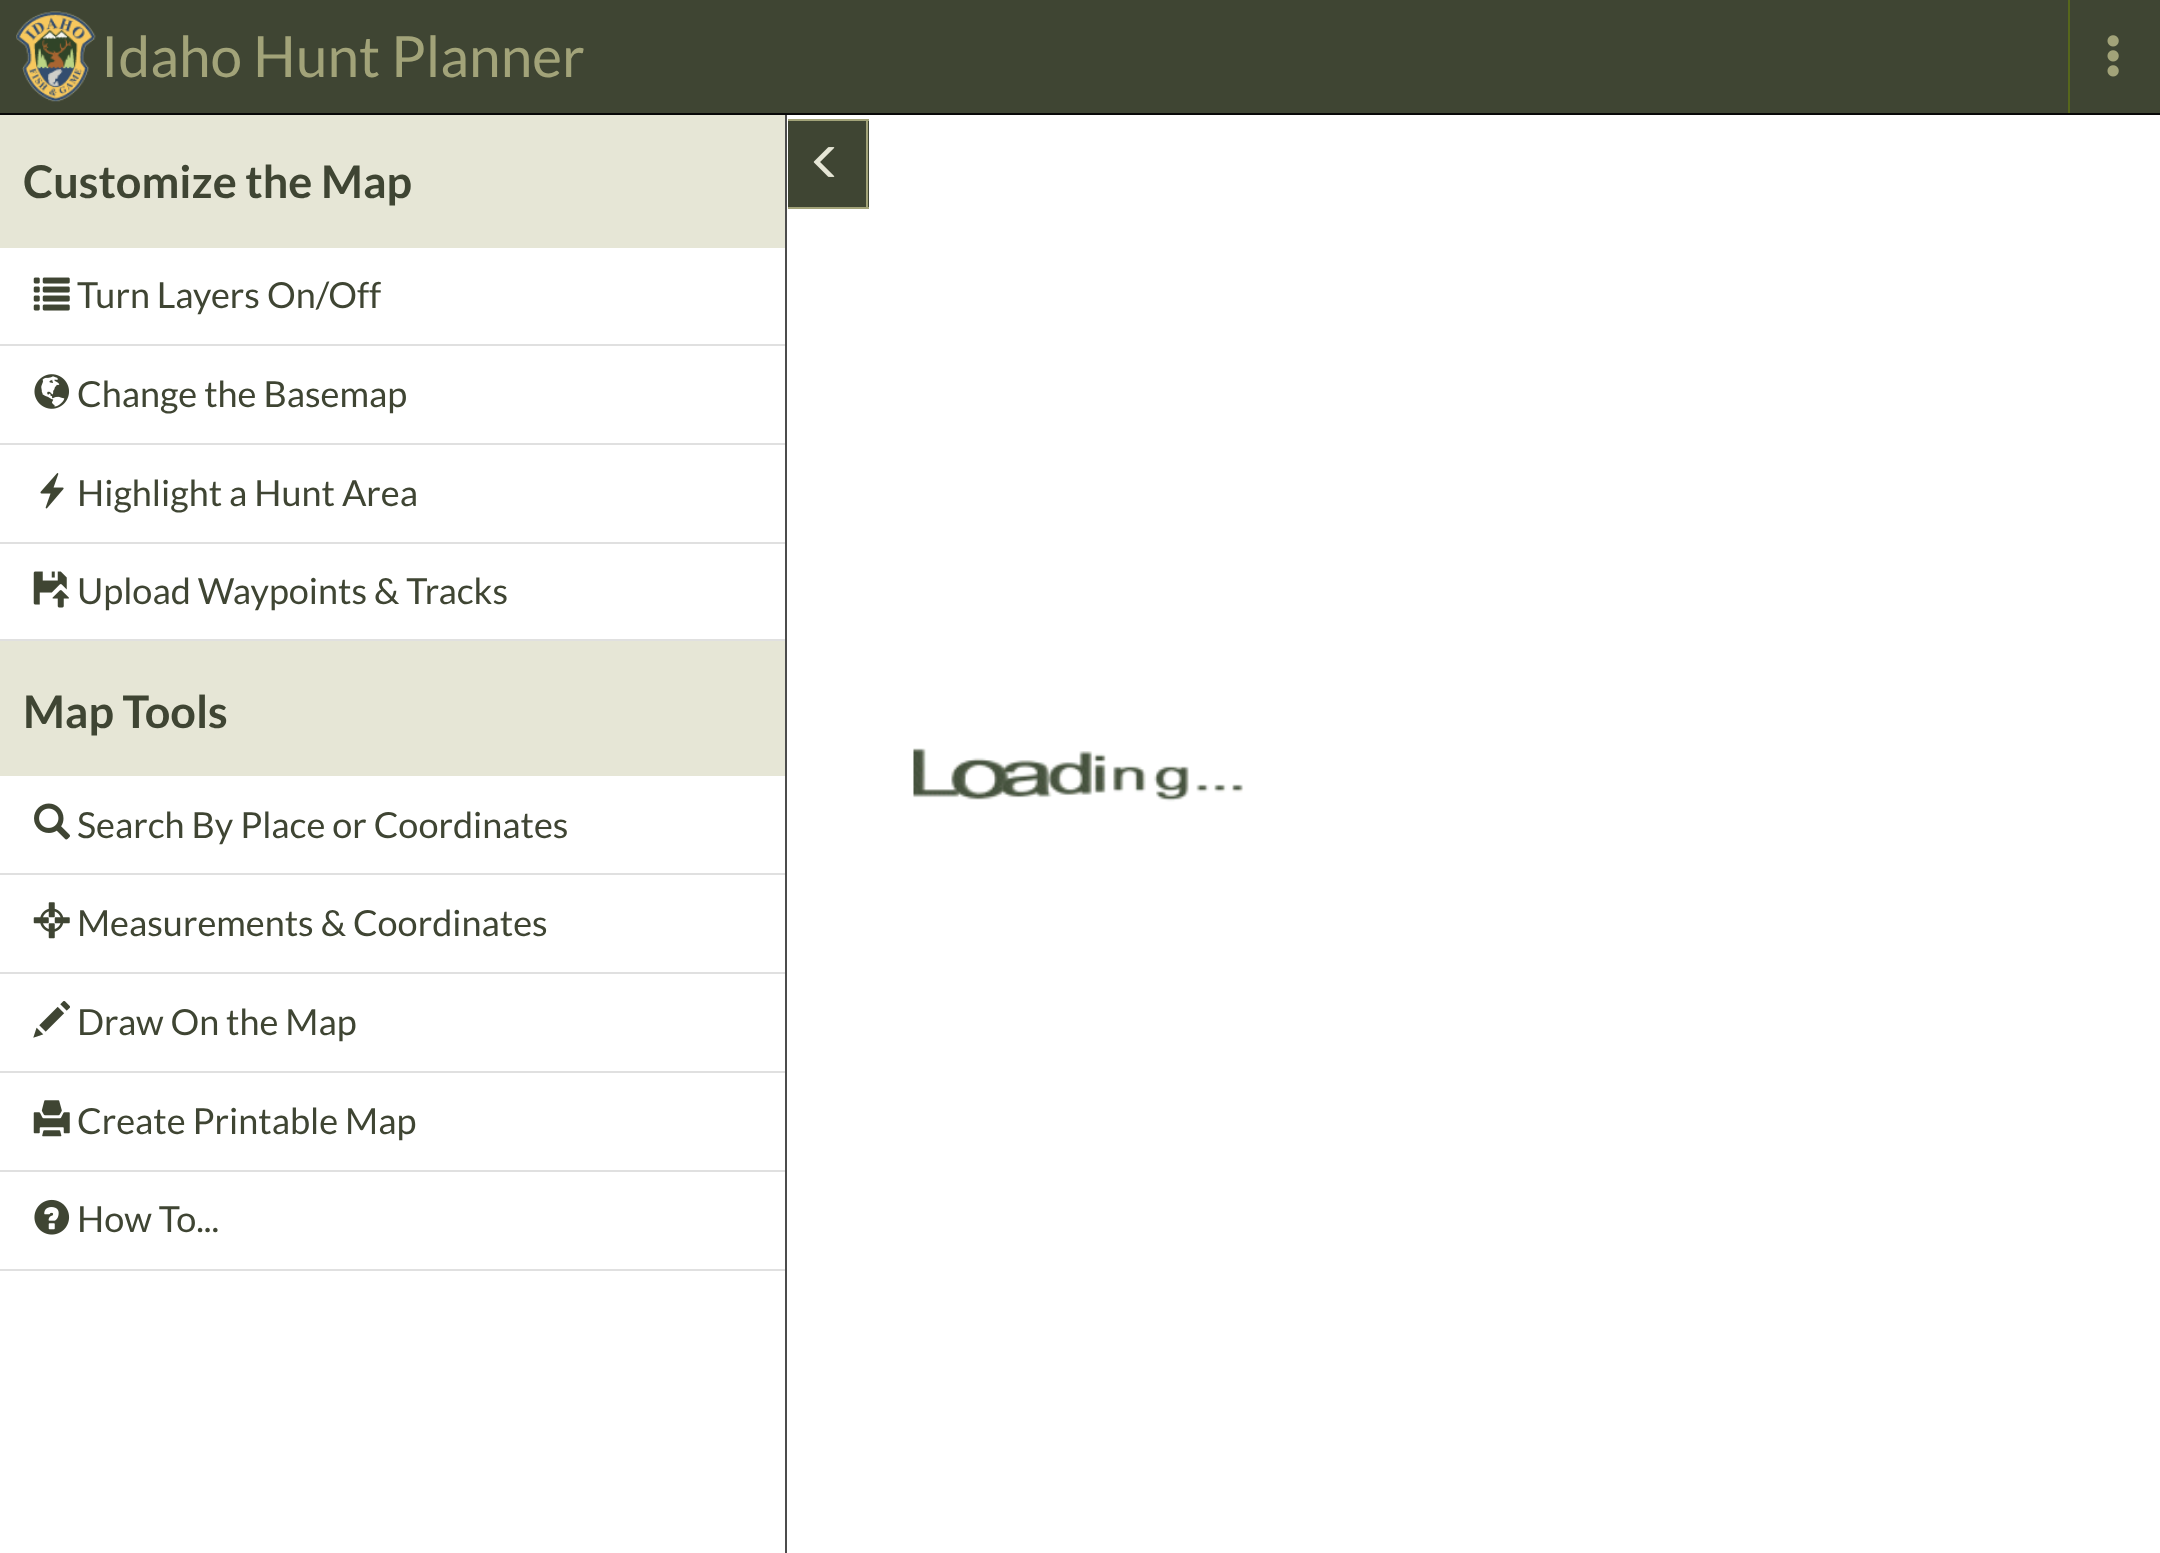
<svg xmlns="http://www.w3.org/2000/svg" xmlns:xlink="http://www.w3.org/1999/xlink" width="2160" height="1553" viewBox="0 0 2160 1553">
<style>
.cls-1{font:56.75px Lato;fill:#a2a379}
.cls-2{font:bold 45px Lato;fill:#3f4533}
.cls-3{font:36px Lato;fill:#3f4533}
</style>
<rect width="100%" height="100%" fill="#ffffff"/>
<rect fill="#3f4533" x="0" y="0" width="2160" height="113"/>
<rect fill="#4c4c4c" x="785" y="113" width="2" height="1440"/>
<rect fill="#080808" x="0" y="113" width="2160" height="2"/>
<image xlink:href="image0.png" x="16" y="11" width="80" height="91"/>
<rect fill="#57671c" x="2068" y="0" width="2" height="113"/>
<image xlink:href="image1.png" x="2107" y="35" width="12" height="42"/>
<rect fill="#e6e6d6" x="0" y="115" width="785" height="133"/>
<rect fill="#e0e0e0" x="0" y="344" width="785" height="2"/>
<image xlink:href="image2.png" x="33" y="277" width="37" height="34"/>
<rect fill="#e0e0e0" x="0" y="443" width="785" height="2"/>
<image xlink:href="image3.png" x="34" y="374" width="35" height="35"/>
<rect fill="#e0e0e0" x="0" y="542" width="785" height="2"/>
<image xlink:href="image4.png" x="40" y="473" width="24" height="36"/>
<rect fill="#e0e0e0" x="0" y="639" width="785" height="2"/>
<image xlink:href="image5.png" x="33" y="571" width="36" height="37"/>
<rect fill="#e6e6d6" x="0" y="641" width="785" height="135"/>
<rect fill="#e0e0e0" x="0" y="873" width="785" height="2"/>
<image xlink:href="image6.png" x="34" y="803" width="36" height="37"/>
<rect fill="#e0e0e0" x="0" y="972" width="785" height="2"/>
<image xlink:href="image7.png" x="33" y="902" width="37" height="37"/>
<rect fill="#e0e0e0" x="0" y="1071" width="785" height="2"/>
<image xlink:href="image8.png" x="33" y="1001" width="37" height="37"/>
<rect fill="#e0e0e0" x="0" y="1170" width="785" height="2"/>
<image xlink:href="image9.png" x="33" y="1100" width="37" height="37"/>
<rect fill="#e0e0e0" x="0" y="1269" width="785" height="2"/>
<image xlink:href="image10.png" x="34" y="1199" width="36" height="36"/>
<rect fill="#3f4533" x="788" y="121" width="81" height="86"/>
<rect fill="#a2a379" x="788" y="119" width="81" height="2"/>
<rect fill="#a2a379" x="866" y="119" width="2" height="90"/>
<rect fill="#a2a379" x="788" y="207" width="81" height="2"/>
<image xlink:href="image11.png" x="813" y="147" width="22" height="30"/>
<image xlink:href="image12.png" x="913" y="748" width="331" height="54"/>
<text class="cls-1" x="101" y="77">Idaho Hunt Planner</text>
<text class="cls-2" x="23" y="198">Customize the Map</text>
<text class="cls-3" x="77" y="308">Turn Layers On/Off</text>
<text class="cls-3" x="77" y="407">Change the Basemap</text>
<text class="cls-3" x="77" y="506">Highlight a Hunt Area</text>
<text class="cls-3" x="77" y="604">Upload Waypoints &amp; Tracks</text>
<text class="cls-2" x="23" y="728">Map Tools</text>
<text class="cls-3" x="77" y="838">Search By Place or Coordinates</text>
<text class="cls-3" x="77" y="936">Measurements &amp; Coordinates</text>
<text class="cls-3" x="77" y="1035">Draw On the Map</text>
<text class="cls-3" x="77" y="1134">Create Printable Map</text>
<text class="cls-3" x="77" y="1232">How To...</text>
</svg>
